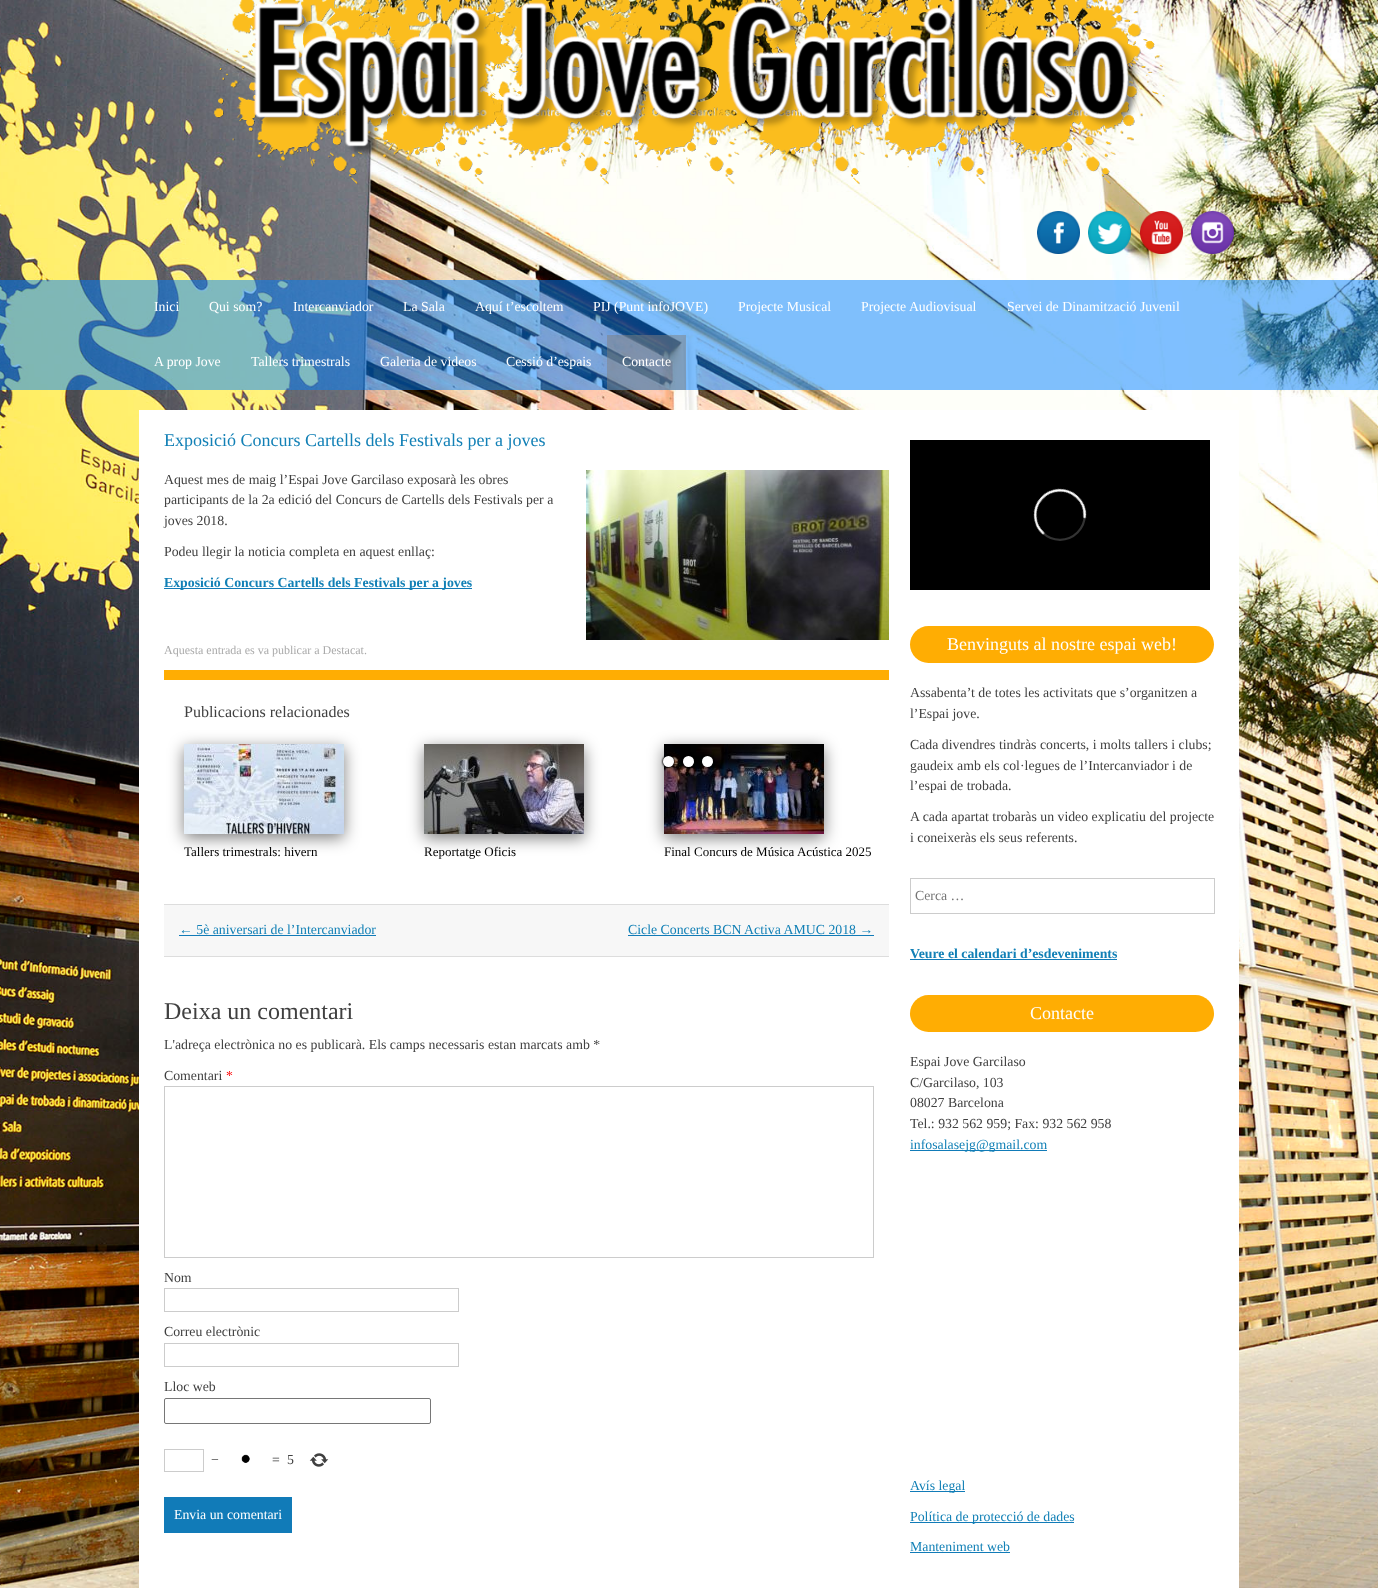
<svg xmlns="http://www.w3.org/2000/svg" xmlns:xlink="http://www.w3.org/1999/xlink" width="1378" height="1588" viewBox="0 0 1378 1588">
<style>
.cls-1{font:13.8px Liberation Serif;fill:#ffffff}
.cls-2{font:18px Liberation Serif;fill:#1280b6}
.cls-3{font:13.8px Liberation Serif;fill:#404040}
.cls-4{font:bold 13.8px Liberation Serif;fill:#1280b6}
.cls-5{font:12px Liberation Serif;fill:#aaaaaa}
.cls-6{font:16px Liberation Serif;fill:#404040}
.cls-7{font:13px Liberation Serif;fill:#000000}
.cls-8{font:13.8px Liberation Serif;fill:#1280b6}
.cls-9{font:24px Liberation Serif;fill:#404040}
.cls-10{font:13.8px Liberation Serif;fill:#ff0000}
.cls-11{font:18px Liberation Serif;fill:#ffffff}
.cls-12{font:13.8px Liberation Serif;fill:#757575}
</style>
<rect width="100%" height="100%" fill="#ffffff"/>
<image xlink:href="image0.png" x="0" y="0" width="1378" height="1588"/>
<image xlink:href="image1.png" x="213" y="0" width="952" height="185"/>
<image xlink:href="image2.png" x="1037" y="211" width="43" height="43"/>
<image xlink:href="image3.png" x="1088" y="211" width="43" height="43"/>
<image xlink:href="image4.png" x="1140" y="211" width="43" height="43"/>
<image xlink:href="image5.png" x="1191" y="211" width="43" height="43"/>
<rect fill="#0080ff" fill-opacity="0.5" x="0" y="280" width="1378" height="110"/>
<rect fill="#808080" fill-opacity="0.5" x="607" y="335" width="79" height="55"/>
<rect fill="#ffffff" x="139" y="410" width="1100" height="1178"/>
<rect fill="#ffad03" x="164" y="670" width="725" height="10"/>
<image xlink:href="image6.png" x="586" y="470" width="303" height="170"/>
<rect fill="#117bb8" x="164" y="588" width="308" height="1"/>
<rect fill="#dddddd" x="164" y="904" width="725" height="1"/>
<rect fill="#000000" fill-opacity="0.5" filter="blur(8px)" x="184" y="748" width="160" height="90"/>
<image xlink:href="image7.png" x="184" y="744" width="160" height="90"/>
<rect fill="#000000" fill-opacity="0.5" filter="blur(8px)" x="424" y="748" width="160" height="90"/>
<image xlink:href="image8.png" x="424" y="744" width="160" height="90"/>
<rect fill="#000000" fill-opacity="0.5" filter="blur(8px)" x="664" y="748" width="160" height="90"/>
<image xlink:href="image9.png" x="664" y="744" width="160" height="90"/>
<rect fill="#f7f7f7" x="164" y="905" width="725" height="51"/>
<rect fill="#117bb8" x="179" y="935" width="197" height="1"/>
<rect fill="#117bb8" x="628" y="935" width="246" height="1"/>
<rect fill="#dddddd" x="164" y="956" width="725" height="1"/>
<rect fill="none" stroke="#cccccc" x="164.5" y="1086.5" width="709" height="171"/>
<rect fill="none" stroke="#cccccc" x="164.5" y="1288.5" width="294" height="23"/>
<rect fill="none" stroke="#cccccc" x="164.5" y="1343.5" width="294" height="23"/>
<rect fill="none" stroke="#767676" x="164.5" y="1398.5" width="266" height="25" rx="1.5"/>
<rect fill="none" stroke="#cccccc" x="164.5" y="1449.5" width="39" height="22"/>
<image xlink:href="image10.png" x="241" y="1454" width="9" height="9"/>
<image xlink:href="image11.png" x="309" y="1453" width="20" height="14"/>
<rect fill="#117bb8" x="164" y="1497" width="128" height="36"/>
<image xlink:href="image12.png" x="910" y="440" width="300" height="150"/>
<rect fill="#000000" filter="blur(1px)" x="663" y="756" width="11" height="11" rx="5.5"/>
<rect fill="#000000" filter="blur(1px)" x="663" y="756" width="11" height="11" rx="5.5"/>
<circle fill="#ffffff" cx="668.5" cy="761.5" r="5.5"/>
<rect fill="#000000" filter="blur(1px)" x="683" y="756" width="11" height="11" rx="5.5"/>
<circle fill="#ffffff" cx="688.5" cy="761.5" r="5.5"/>
<rect fill="#000000" filter="blur(1px)" x="702" y="756" width="11" height="11" rx="5.5"/>
<circle fill="#ffffff" cx="707.5" cy="761.5" r="5.5"/>
<rect fill="#ffad03" x="910" y="626" width="304" height="37" rx="18.5"/>
<rect fill="none" stroke="#cccccc" x="910.5" y="878.5" width="304" height="35"/>
<rect fill="#117bb8" x="910" y="959" width="207" height="1"/>
<rect fill="#ffad03" x="910" y="995" width="304" height="37" rx="18.5"/>
<rect fill="#117bb8" x="910" y="1150" width="137" height="1"/>
<rect fill="#117bb8" x="910" y="1491" width="55" height="1"/>
<rect fill="#117bb8" x="910" y="1522" width="164" height="1"/>
<rect fill="#117bb8" x="910" y="1552" width="100" height="1"/>
<text class="cls-1" x="154" y="311">Inici</text>
<text class="cls-1" x="209" y="311">Qui som?</text>
<text class="cls-1" x="293" y="311">Intercanviador</text>
<text class="cls-1" x="403" y="311">La Sala</text>
<text class="cls-1" x="475" y="311">Aquí t’escoltem</text>
<text class="cls-1" x="593" y="311">PIJ (Punt infoJOVE)</text>
<text class="cls-1" x="738" y="311">Projecte Musical</text>
<text class="cls-1" x="861" y="311">Projecte Audiovisual</text>
<text class="cls-1" x="1007" y="311">Servei de Dinamització Juvenil</text>
<text class="cls-1" x="154" y="366">A prop Jove</text>
<text class="cls-1" x="251" y="366">Tallers trimestrals</text>
<text class="cls-1" x="380" y="366">Galeria de videos</text>
<text class="cls-1" x="506" y="366">Cessió d’espais</text>
<text class="cls-1" x="622" y="366">Contacte</text>
<text class="cls-2" x="164" y="446">Exposició Concurs Cartells dels Festivals per a joves</text>
<text class="cls-3"><tspan x="164" y="484">Aquest mes de maig l’Espai Jove Garcilaso exposarà les obres</tspan><tspan x="164" y="504">participants de la 2a edició del Concurs de Cartells dels Festivals per a</tspan><tspan x="164" y="525">joves 2018.</tspan></text>
<text class="cls-3" x="164" y="556">Podeu llegir la noticia completa en aquest enllaç:</text>
<text class="cls-4" x="164" y="587">Exposició Concurs Cartells dels Festivals per a joves</text>
<text class="cls-5" x="164" y="654">Aquesta entrada es va publicar a Destacat.</text>
<text class="cls-6" x="184" y="717">Publicacions relacionades</text>
<text class="cls-7" x="184" y="856">Tallers trimestrals: hivern</text>
<text class="cls-7" x="424" y="856">Reportatge Oficis</text>
<text class="cls-7" x="664" y="856">Final Concurs de Música Acústica 2025</text>
<text class="cls-8" x="179" y="934">← 5è aniversari de l’Intercanviador</text>
<text class="cls-8" x="628" y="934">Cicle Concerts BCN Activa AMUC 2018 →</text>
<text class="cls-9" x="164" y="1019">Deixa un comentari</text>
<text class="cls-3" x="164" y="1049">L'adreça electrònica no es publicarà. Els camps necessaris estan marcats amb *</text>
<text class="cls-3" x="164" y="1080">Comentari</text>
<text class="cls-10" x="226" y="1080">*</text>
<text class="cls-3" x="164" y="1282">Nom</text>
<text class="cls-3" x="164" y="1336">Correu electrònic</text>
<text class="cls-3" x="164" y="1391">Lloc web</text>
<text class="cls-3" x="211" y="1464">−</text>
<text class="cls-3" x="272" y="1464">=</text>
<text class="cls-3" x="287" y="1464">5</text>
<text class="cls-1" x="174" y="1519">Envia un comentari</text>
<text class="cls-11" x="947" y="650">Benvinguts al nostre espai web!</text>
<text class="cls-3"><tspan x="910" y="697">Assabenta’t de totes les activitats que s’organitzen a</tspan><tspan x="910" y="718">l’Espai jove.</tspan></text>
<text class="cls-3"><tspan x="910" y="749">Cada divendres tindràs concerts, i molts tallers i clubs;</tspan><tspan x="910" y="770">gaudeix amb els col·legues de l’Intercanviador i de</tspan><tspan x="910" y="790">l’espai de trobada.</tspan></text>
<text class="cls-3"><tspan x="910" y="821">A cada apartat trobaràs un video explicatiu del projecte</tspan><tspan x="910" y="842">i coneixeràs els seus referents.</tspan></text>
<text class="cls-12" x="915" y="900">Cerca …</text>
<text class="cls-4" x="910" y="958">Veure el calendari d’esdeveniments</text>
<text class="cls-11" x="1030" y="1019">Contacte</text>
<text class="cls-3"><tspan x="910" y="1066">Espai Jove Garcilaso</tspan><tspan x="910" y="1087">C/Garcilaso, 103</tspan><tspan x="910" y="1107">08027 Barcelona</tspan><tspan x="910" y="1128">Tel.: 932 562 959; Fax: 932 562 958</tspan></text>
<text class="cls-8" x="910" y="1149">infosalasejg@gmail.com</text>
<text class="cls-8" x="910" y="1490">Avís legal</text>
<text class="cls-8" x="910" y="1521">Política de protecció de dades</text>
<text class="cls-8" x="910" y="1551">Manteniment web</text>
</svg>
